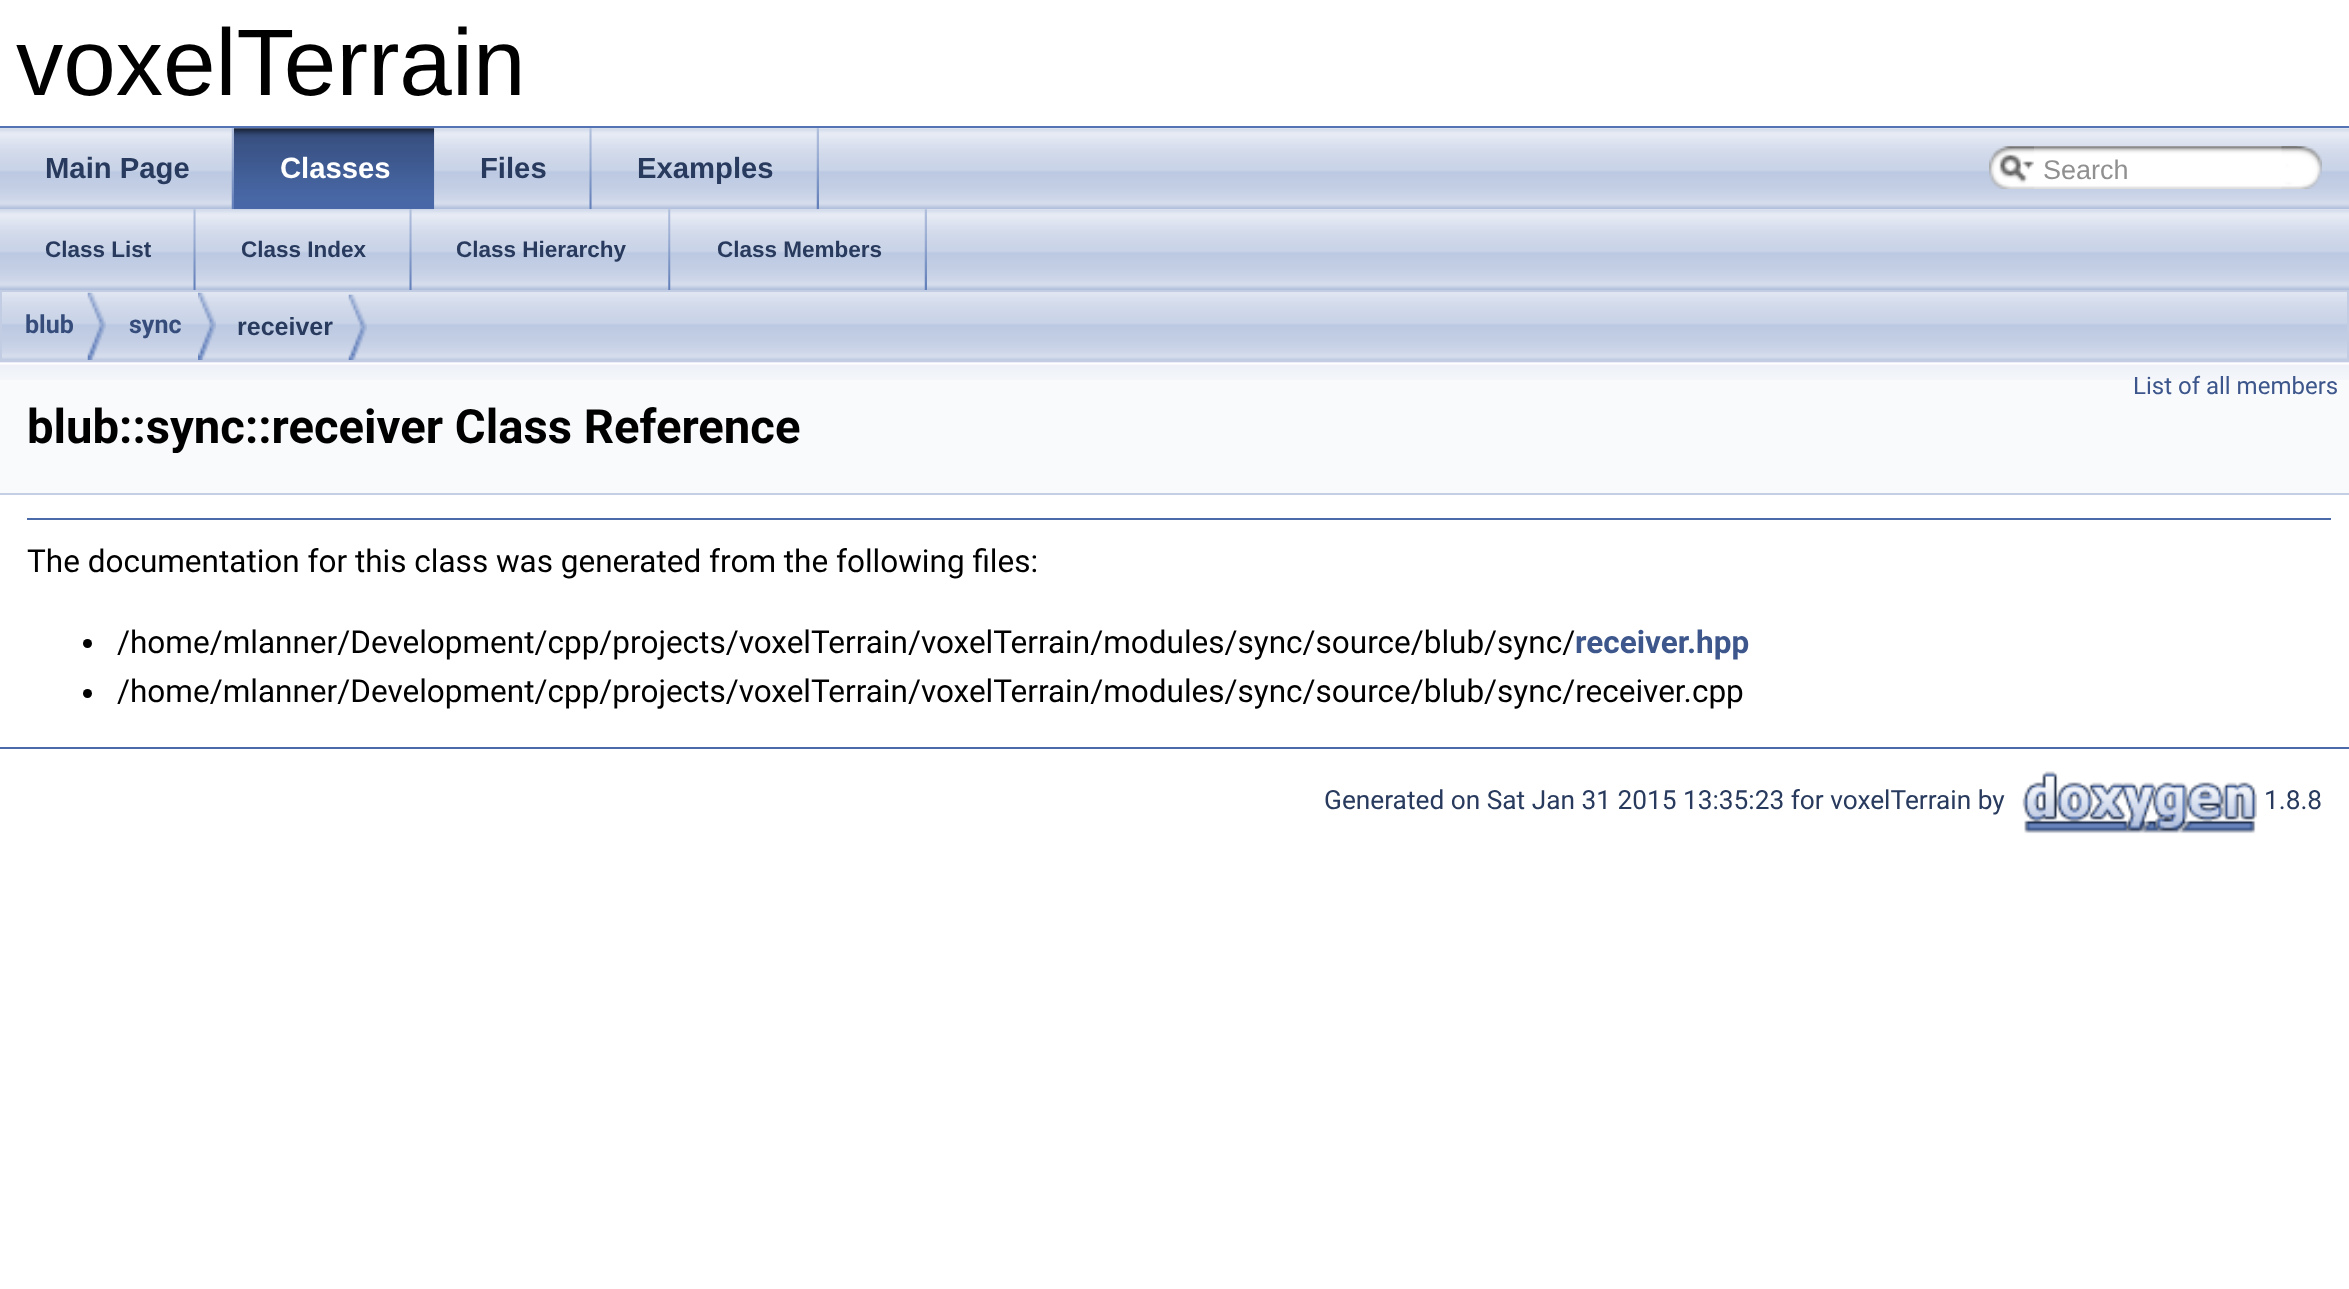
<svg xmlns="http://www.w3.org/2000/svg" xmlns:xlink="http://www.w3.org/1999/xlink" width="2349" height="1289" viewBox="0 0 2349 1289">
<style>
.cls-1{font:94.5px Liberation Sans;fill:#000000}
.cls-2{font:bold 29.25px Liberation Sans;fill:#283a5d}
.cls-3{font:bold 29.25px Liberation Sans;fill:#ffffff}
.cls-4{font:27px Liberation Sans;fill:#909090}
.cls-5{font:bold 22.5px Liberation Sans;fill:#283a5d}
.cls-6{font:bold 25px Roboto;fill:#364d7c}
.cls-7{font:bold 25px Liberation Sans;fill:#283a5d}
.cls-8{font:24px Roboto;fill:#3d578c}
.cls-9{font:bold 47.25px Roboto;fill:#000000}
.cls-10{font:31.5px Roboto;fill:#000000}
.cls-11{font:bold 31.5px Roboto;fill:#3d578c}
.cls-12{font:26.25px Roboto;fill:#283a5d}
</style>
<rect width="100%" height="100%" fill="#ffffff"/>
<rect fill="#5373b4" x="0" y="126" width="2349" height="2"/>
<image xlink:href="image0.png" x="0" y="128" width="2349" height="82"/>
<image xlink:href="image12.png" x="0" y="209" width="2349" height="81"/>
<image xlink:href="image1.png" x="0" y="128" width="234" height="82"/>
<image xlink:href="image2.png" x="231" y="128" width="3" height="82"/>
<image xlink:href="image3.png" x="234" y="128" width="200" height="82"/>
<image xlink:href="image4.png" x="234" y="128" width="201" height="82"/>
<image xlink:href="image5.png" x="434" y="128" width="158" height="82"/>
<image xlink:href="image6.png" x="589" y="128" width="3" height="82"/>
<image xlink:href="image7.png" x="591" y="128" width="228" height="82"/>
<image xlink:href="image2.png" x="816" y="128" width="3" height="82"/>
<image xlink:href="image8.png" x="1989" y="146" width="45" height="43"/>
<image xlink:href="image9.png" x="1999" y="154" width="35" height="29"/>
<image xlink:href="image10.png" x="2034" y="146" width="264" height="43"/>
<image xlink:href="image11.png" x="2281" y="146" width="41" height="43"/>
<image xlink:href="image13.png" x="193" y="209" width="3" height="81"/>
<image xlink:href="image14.png" x="195" y="209" width="217" height="81"/>
<image xlink:href="image15.png" x="409" y="209" width="3" height="81"/>
<image xlink:href="image16.png" x="411" y="209" width="260" height="81"/>
<image xlink:href="image17.png" x="668" y="209" width="3" height="81"/>
<image xlink:href="image18.png" x="670" y="209" width="257" height="81"/>
<image xlink:href="image19.png" x="924" y="209" width="3" height="81"/>
<rect fill="#f9fafc" x="0" y="362" width="2349" height="131"/>
<image xlink:href="image24.png" x="0" y="362" width="2349" height="18"/>
<image xlink:href="image20.png" x="0" y="292" width="2349" height="71"/>
<rect fill="none" stroke="#c2cde4" stroke-width="2" x="1" y="291" width="2347" height="70"/>
<image xlink:href="image21.png" x="87" y="292" width="19" height="68"/>
<image xlink:href="image22.png" x="198" y="292" width="18" height="68"/>
<image xlink:href="image23.png" x="348" y="294" width="19" height="66"/>
<rect fill="#c4cfe5" x="0" y="493" width="2349" height="2"/>
<rect fill="#4a6aaa" x="27" y="518" width="2304" height="2"/>
<circle fill="#000000" cx="87.5" cy="643.5" r="4.5"/>
<circle fill="#000000" cx="87.5" cy="693.5" r="4.5"/>
<rect fill="#4a6aaa" x="0" y="747" width="2349" height="2"/>
<image xlink:href="image25.png" x="2022" y="771" width="235" height="63"/>
<text class="cls-1" x="16" y="95">voxelTerrain</text>
<text class="cls-2" x="45" y="178">Main Page</text>
<text class="cls-3" x="280" y="178">Classes</text>
<text class="cls-2" x="480" y="178">Files</text>
<text class="cls-2" x="637" y="178">Examples</text>
<text class="cls-4" x="2043" y="179">Search</text>
<text class="cls-5" x="45" y="257">Class List</text>
<text class="cls-5" x="241" y="257">Class Index</text>
<text class="cls-5" x="456" y="257">Class Hierarchy</text>
<text class="cls-5" x="717" y="257">Class Members</text>
<text class="cls-6" x="25" y="333">blub</text>
<text class="cls-6" x="129" y="333">sync</text>
<text class="cls-7" x="237" y="335">receiver</text>
<text class="cls-8" x="2133" y="394">List of all members</text>
<text class="cls-9" x="27" y="443">blub::sync::receiver Class Reference</text>
<text class="cls-10" x="27" y="572">The documentation for this class was generated from the following files:</text>
<text class="cls-10" x="117" y="653">/home/mlanner/Development/cpp/projects/voxelTerrain/voxelTerrain/modules/sync/source/blub/sync/</text>
<text class="cls-11" x="1575" y="653">receiver.hpp</text>
<text class="cls-10" x="117" y="702">/home/mlanner/Development/cpp/projects/voxelTerrain/voxelTerrain/modules/sync/source/blub/sync/receiver.cpp</text>
<text class="cls-12" x="1324" y="809">Generated on Sat Jan 31 2015 13:35:23 for voxelTerrain by</text>
<text class="cls-12" x="2264" y="809">1.8.8</text>
</svg>
